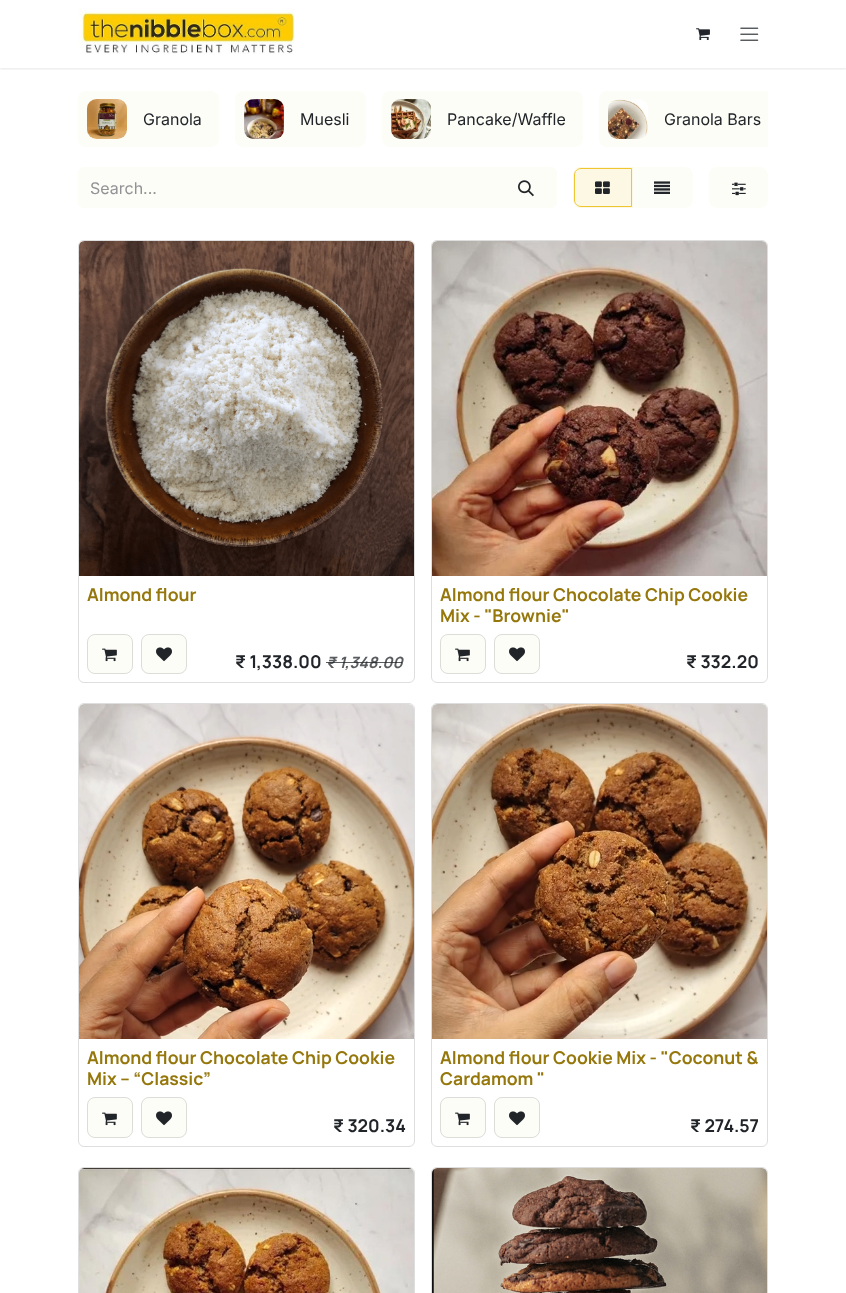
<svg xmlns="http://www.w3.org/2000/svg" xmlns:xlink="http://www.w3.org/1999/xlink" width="846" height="1293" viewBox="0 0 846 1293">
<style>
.cls-1{font:16px Inter;fill:#212529}
.cls-2{font:16px Inter;fill:#909294}
.cls-3{font:bold 17.6px Manrope;fill:#95770c}
.cls-4{font:bold 17.6px Manrope;fill:#212529}
.cls-5{font:italic bold 15.5px Manrope;fill:#595c5f}
</style>
<defs>
<clipPath id="clip1"><rect x="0" y="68" width="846" height="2"/></clipPath>
</defs>
<rect width="100%" height="100%" fill="#ffffff"/>
<g clip-path="url(#clip1)">
<rect fill="#000000" fill-opacity="0.1" filter="blur(1.5px)" x="0" y="1" width="846" height="68"/>
</g>
<image xlink:href="image0.png" x="78" y="8" width="217" height="46"/>
<image xlink:href="image1.png" x="696" y="28" width="14" height="13"/>
<image xlink:href="image2.png" x="740" y="27" width="19" height="14"/>
<rect fill="#fdfdf8" x="78" y="91" width="141" height="56" rx="8"/>
<image xlink:href="image3.png" x="87" y="99" width="40" height="40"/>
<rect fill="#fdfdf8" x="235" y="91" width="131" height="56" rx="8"/>
<image xlink:href="image4.png" x="244" y="99" width="40" height="40"/>
<rect fill="#fdfdf8" x="382" y="91" width="201" height="56" rx="8"/>
<image xlink:href="image5.png" x="391" y="99" width="40" height="40"/>
<path fill="#fdfdf8" d="M607 91H768V147H607C602.5 147 599 143.5 599 139V99C599 94.5 602.5 91 607 91Z"/>
<image xlink:href="image6.png" x="608" y="99" width="40" height="40"/>
<path fill="#fdfdf8" d="M84 167H497V208H84C80.5 208 78 205.5 78 202V173C78 169.5 80.5 167 84 167Z"/>
<path fill="#fdfdf8" d="M496 167H551C554.5 167 557 169.5 557 173V202C557 205.5 554.5 208 551 208H496Z"/>
<image xlink:href="image7.png" x="518" y="180" width="16" height="17"/>
<path fill="#fdfdf8" d="M632 167H685C689.5 167 693 170.5 693 175V200C693 204.5 689.5 208 685 208H632Z"/>
<path fill="#fcf8e4" d="M581 167H633V208H581C576.5 208 573 204.5 573 200V175C573 170.5 576.5 167 581 167Z"/>
<path fill="none" stroke="#efc631" d="M581 168.5H631.5V206.5H581C577.5 206.5 574.5 203.5 574.5 200V175C574.5 171.5 577.5 168.5 581 168.5Z"/>
<image xlink:href="image8.png" x="595" y="181" width="15" height="13"/>
<image xlink:href="image9.png" x="654" y="181" width="16" height="13"/>
<rect fill="#fdfdf8" x="709" y="167" width="59" height="41" rx="8"/>
<image xlink:href="image10.png" x="732" y="182" width="14" height="14"/>
<rect fill="none" stroke="#dededf" x="78.5" y="240.5" width="336" height="442" rx="5.5"/>
<image xlink:href="image11.png" x="79" y="241" width="335" height="335"/>
<rect fill="#fdfdf8" x="87" y="634" width="46" height="40" rx="8"/>
<rect fill="none" stroke="#212529" stroke-opacity="0.15" x="87.5" y="634.5" width="45" height="39" rx="7.5"/>
<image xlink:href="image12.png" x="102" y="648" width="15" height="14"/>
<rect fill="#fdfdf8" x="141" y="634" width="46" height="40" rx="8"/>
<rect fill="none" stroke="#212529" stroke-opacity="0.15" x="141.5" y="634.5" width="45" height="39" rx="7.5"/>
<image xlink:href="image13.png" x="156" y="647" width="16" height="15"/>
<rect fill="none" stroke="#dededf" x="431.5" y="240.5" width="336" height="442" rx="5.5"/>
<image xlink:href="image14.png" x="432" y="241" width="335" height="335"/>
<rect fill="#fdfdf8" x="440" y="634" width="46" height="40" rx="8"/>
<rect fill="none" stroke="#212529" stroke-opacity="0.15" x="440.5" y="634.5" width="45" height="39" rx="7.5"/>
<image xlink:href="image12.png" x="455" y="648" width="15" height="14"/>
<rect fill="#fdfdf8" x="494" y="634" width="46" height="40" rx="8"/>
<rect fill="none" stroke="#212529" stroke-opacity="0.15" x="494.5" y="634.5" width="45" height="39" rx="7.5"/>
<image xlink:href="image13.png" x="509" y="647" width="16" height="15"/>
<rect fill="none" stroke="#dededf" x="78.5" y="703.5" width="336" height="443" rx="5.5"/>
<image xlink:href="image15.png" x="79" y="704" width="335" height="335"/>
<rect fill="#fdfdf8" x="87" y="1097" width="46" height="41" rx="8"/>
<rect fill="none" stroke="#212529" stroke-opacity="0.15" x="87.5" y="1097.5" width="45" height="40" rx="7.5"/>
<image xlink:href="image12.png" x="102" y="1112" width="15" height="14"/>
<rect fill="#fdfdf8" x="141" y="1097" width="46" height="41" rx="8"/>
<rect fill="none" stroke="#212529" stroke-opacity="0.15" x="141.5" y="1097.5" width="45" height="40" rx="7.5"/>
<image xlink:href="image13.png" x="156" y="1111" width="16" height="15"/>
<rect fill="none" stroke="#dededf" x="431.5" y="703.5" width="336" height="443" rx="5.5"/>
<image xlink:href="image16.png" x="432" y="704" width="335" height="335"/>
<rect fill="#fdfdf8" x="440" y="1097" width="46" height="41" rx="8"/>
<rect fill="none" stroke="#212529" stroke-opacity="0.15" x="440.5" y="1097.5" width="45" height="40" rx="7.5"/>
<image xlink:href="image12.png" x="455" y="1112" width="15" height="14"/>
<rect fill="#fdfdf8" x="494" y="1097" width="46" height="41" rx="8"/>
<rect fill="none" stroke="#212529" stroke-opacity="0.15" x="494.5" y="1097.5" width="45" height="40" rx="7.5"/>
<image xlink:href="image13.png" x="509" y="1111" width="16" height="15"/>
<rect fill="none" stroke="#dededf" x="78.5" y="1167.5" width="336" height="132" rx="5.5"/>
<image xlink:href="image17.png" x="79" y="1168" width="335" height="125"/>
<rect fill="none" stroke="#dededf" x="431.5" y="1167.5" width="336" height="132" rx="5.5"/>
<image xlink:href="image18.png" x="432" y="1168" width="335" height="125"/>
<text class="cls-1" x="143" y="125">Granola</text>
<text class="cls-1" x="300" y="125">Muesli</text>
<text class="cls-1" x="447" y="125">Pancake/Waffle</text>
<text class="cls-1" x="664" y="125">Granola Bars</text>
<text class="cls-2" x="90" y="194">Search...</text>
<text class="cls-3" x="87" y="601">Almond flour</text>
<text class="cls-4" x="235" y="668">₹ 1,338.00</text>
<text class="cls-5" x="326" y="668">₹ 1,348.00</text>
<rect fill="#212529" fill-opacity="0.75" x="326" y="662" width="13" height="1"/>
<rect fill="#212529" fill-opacity="0.75" x="339" y="662" width="63" height="1"/>
<text class="cls-3"><tspan x="440" y="601">Almond flour Chocolate Chip Cookie</tspan><tspan x="440" y="622">Mix - "Brownie"</tspan></text>
<text class="cls-4" x="686" y="668">₹ 332.20</text>
<text class="cls-3"><tspan x="87" y="1064">Almond flour Chocolate Chip Cookie</tspan><tspan x="87" y="1085">Mix – “Classic”</tspan></text>
<text class="cls-4" x="333" y="1132">₹ 320.34</text>
<text class="cls-3"><tspan x="440" y="1064">Almond flour Cookie Mix - "Coconut &amp;</tspan><tspan x="440" y="1085">Cardamom "</tspan></text>
<text class="cls-4" x="690" y="1132">₹ 274.57</text>
</svg>
